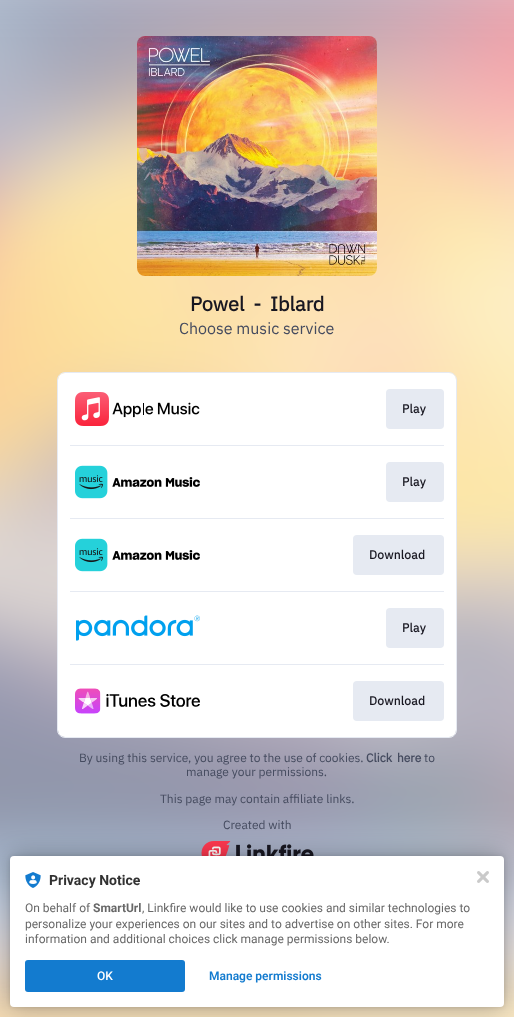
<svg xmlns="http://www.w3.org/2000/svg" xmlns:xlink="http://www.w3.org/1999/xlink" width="514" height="1017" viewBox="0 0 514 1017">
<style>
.cls-1{font:bold 20px IBM Plex Sans;fill:#181721}
.cls-2{font:16px IBM Plex Sans;fill:#454b5f}
.cls-3{font:bold 12px IBM Plex Sans;letter-spacing:0.25px;fill:#181721}
.cls-4{font:12px IBM Plex Sans;fill:#454b5f}
.cls-5{font:bold 12px IBM Plex Sans;fill:#454b5f}
.cls-6{font:bold 14px Roboto;fill:#323232}
.cls-7{font:12px Roboto;fill:#686868}
.cls-8{font:bold 12px Roboto;fill:#686868}
.cls-9{font:500 12px Roboto;fill:#ffffff}
.cls-10{font:600 12px Roboto;fill:#137bcf}
</style>
<rect width="100%" height="100%" fill="#ffffff"/>
<image xlink:href="image0.png" x="0" y="0" width="514" height="1017"/>
<image xlink:href="image1.png" x="137" y="36" width="240" height="240"/>
<rect fill="none" stroke="#e6eaf2" x="57.5" y="372.5" width="399" height="365" rx="7.5"/>
<rect fill="#ffffff" x="58" y="373" width="398" height="364" rx="7"/>
<image xlink:href="image2.png" x="75" y="392" width="125" height="34"/>
<rect fill="#e6eaf2" x="386" y="389" width="58" height="40" rx="4"/>
<rect fill="#e6eaf2" x="70" y="445" width="374" height="1"/>
<image xlink:href="image3.png" x="75" y="465" width="125" height="34"/>
<rect fill="#e6eaf2" x="386" y="462" width="58" height="40" rx="4"/>
<rect fill="#e6eaf2" x="70" y="518" width="374" height="1"/>
<image xlink:href="image3.png" x="75" y="538" width="125" height="34"/>
<rect fill="#e6eaf2" x="353" y="535" width="91" height="40" rx="4"/>
<rect fill="#e6eaf2" x="70" y="591" width="374" height="1"/>
<image xlink:href="image4.png" x="76" y="615" width="124" height="26"/>
<rect fill="#e6eaf2" x="386" y="608" width="58" height="40" rx="4"/>
<rect fill="#e6eaf2" x="70" y="664" width="374" height="1"/>
<image xlink:href="image5.png" x="75" y="688" width="125" height="26"/>
<rect fill="#e6eaf2" x="353" y="681" width="91" height="40" rx="4"/>
<image xlink:href="image6.png" x="201" y="841" width="113" height="15"/>
<rect fill="#000000" fill-opacity="0.12" filter="blur(2px)" x="10" y="856" width="494" height="151" rx="4"/>
<rect fill="#000000" fill-opacity="0.3" filter="blur(12px)" x="10" y="856" width="494" height="151" rx="4"/>
<rect fill="#ffffff" x="10" y="856" width="494" height="151" rx="4"/>
<image xlink:href="image7.png" x="25" y="872" width="16" height="16"/>
<rect fill="#137bcf" x="25" y="960" width="160" height="32" rx="3"/>
<image xlink:href="image8.png" x="477" y="871" width="12" height="12"/>
<text class="cls-1" x="190" y="311" word-spacing="4">Powel - Iblard</text>
<text class="cls-2" x="179" y="334">Choose music service</text>
<text class="cls-3" x="402" y="413">Play</text>
<text class="cls-3" x="402" y="486">Play</text>
<text class="cls-3" x="369" y="559">Download</text>
<text class="cls-3" x="402" y="632">Play</text>
<text class="cls-3" x="369" y="705">Download</text>
<text class="cls-4" x="79" y="762">By using this service, you agree to the use of cookies.</text>
<text class="cls-5" x="366" y="762" word-spacing="2">Click here</text>
<text class="cls-4" x="424" y="762">to</text>
<text class="cls-4" x="186" y="776">manage your permissions.</text>
<text class="cls-4" x="160" y="803">This page may contain affiliate links.</text>
<text class="cls-4" x="223" y="829">Created with</text>
<text class="cls-6" x="49" y="885">Privacy Notice</text>
<text class="cls-7" x="25" y="912">On behalf of</text>
<text class="cls-8" x="93" y="912">SmartUrl</text>
<text class="cls-7" x="142" y="912">, Linkfire would like to use cookies and similar technologies to</text>
<text class="cls-7"><tspan x="25" y="928">personalize your experiences on our sites and to advertise on other sites. For more</tspan><tspan x="25" y="943">information and additional choices click manage permissions below.</tspan></text>
<text class="cls-9" x="97" y="980">OK</text>
<text class="cls-10" x="209" y="980">Manage permissions</text>
</svg>
